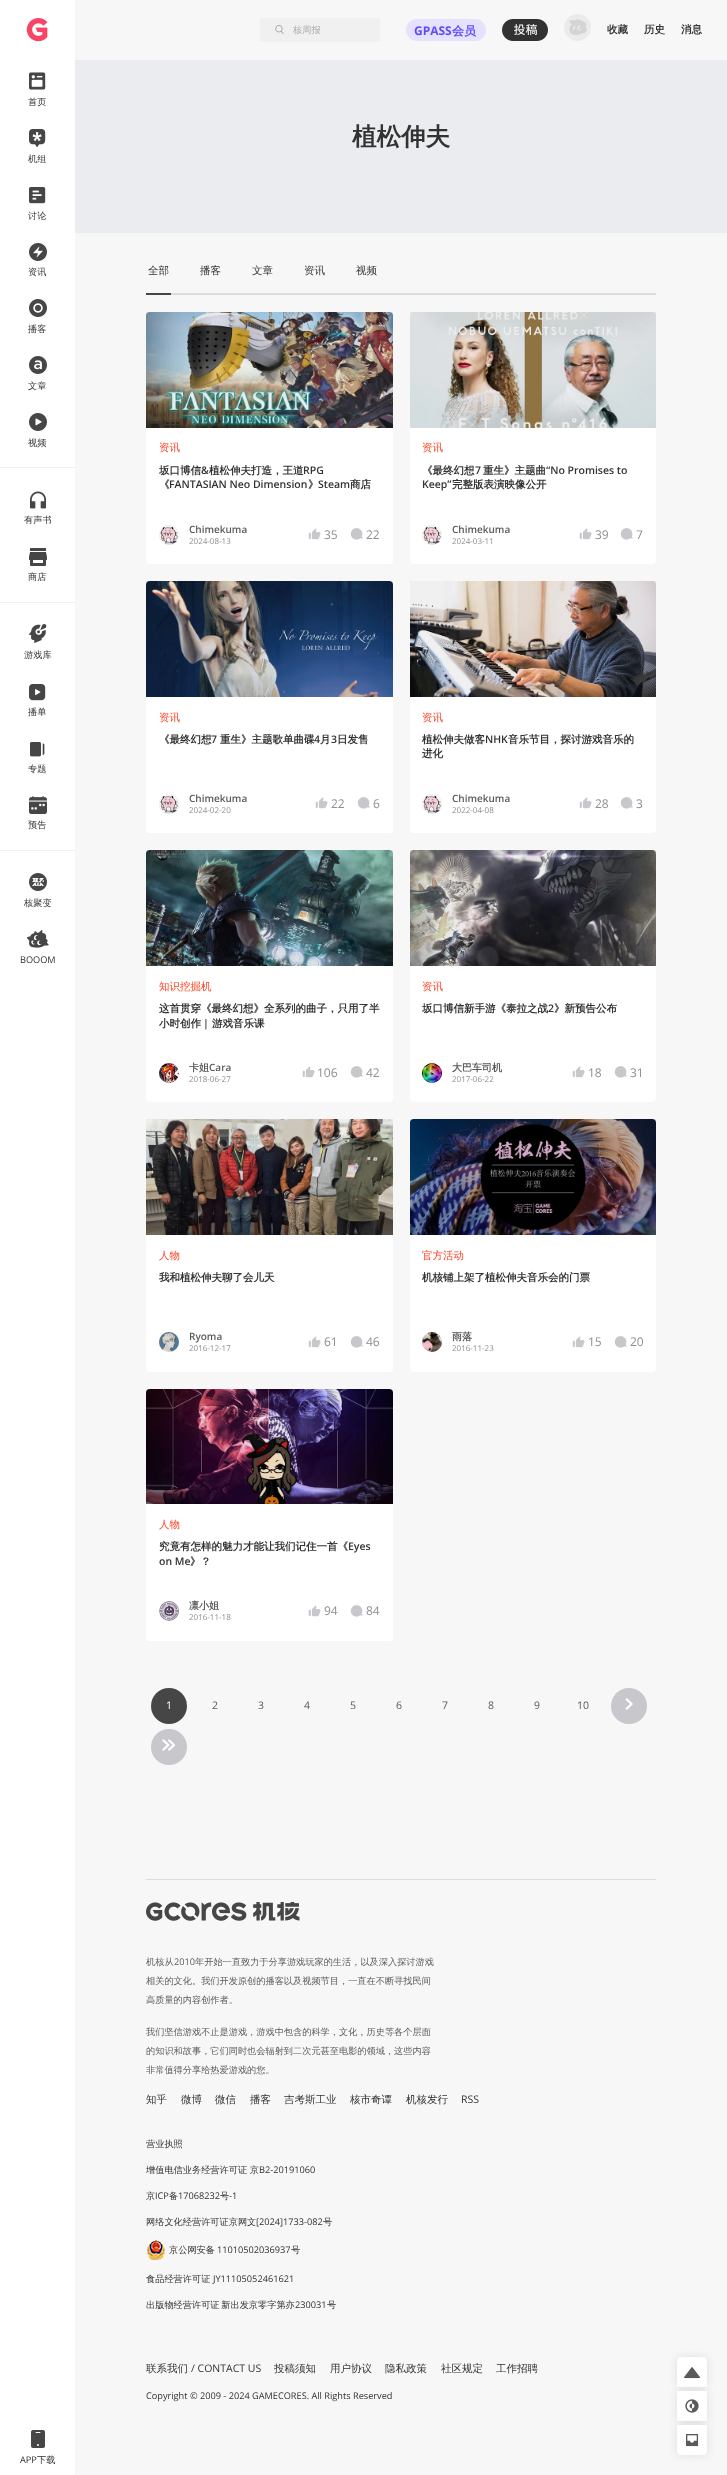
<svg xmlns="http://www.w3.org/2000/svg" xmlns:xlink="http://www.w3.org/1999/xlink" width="727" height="2475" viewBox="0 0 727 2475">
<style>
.cls-1{font:500 9.2px WenQuanYi Zen Hei;fill:#323232}
.cls-2{font:9.2px Open Sans;fill:#323232}
.cls-3{font:500 9.2px WenQuanYi Zen Hei;fill:#aaaaaa}
.cls-4{font:bold 12px Open Sans;fill:#5e4bff}
.cls-5{font:bold 12px WenQuanYi Zen Hei;fill:#5e4bff}
.cls-6{font:bold 10.5px WenQuanYi Zen Hei;fill:#323232}
.cls-7{font:bold 24.5px WenQuanYi Zen Hei;fill:#323232}
.cls-8{font:500 10.5px WenQuanYi Zen Hei;fill:#323232}
.cls-9{font:500 10.5px WenQuanYi Zen Hei;fill:#ff3d1d}
.cls-10{font:600 10.5px Open Sans;fill:#323232}
.cls-11{font:600 10px Open Sans;fill:#5a5a5a}
.cls-12{font:8px Open Sans;fill:#8e8e93}
.cls-13{font:12px Open Sans;fill:#8e8e93}
.cls-14{font:bold 10px WenQuanYi Zen Hei;fill:#5a5a5a}
.cls-15{font:10.5px Open Sans;fill:#ffffff}
.cls-16{font:10.5px Open Sans;fill:#5a5a5a}
.cls-17{font:500 9.2px WenQuanYi Zen Hei;fill:#5a5a5a}
.cls-18{font:9.2px Open Sans;fill:#5a5a5a}
.cls-19{font:10.5px Open Sans;fill:#323232}
</style>
<rect width="100%" height="100%" fill="#f7f7f8"/>
<rect fill="#ffffff" x="0" y="0" width="75" height="2475"/>
<image xlink:href="image0.png" x="26" y="18" width="22" height="24"/>
<image xlink:href="image1.png" x="29" y="72" width="17" height="18"/>
<image xlink:href="image2.png" x="29" y="129" width="17" height="18"/>
<image xlink:href="image3.png" x="29" y="187" width="17" height="17"/>
<image xlink:href="image4.png" x="29" y="243" width="18" height="18"/>
<image xlink:href="image5.png" x="29" y="299" width="18" height="18"/>
<image xlink:href="image6.png" x="29" y="356" width="18" height="18"/>
<image xlink:href="image7.png" x="29" y="413" width="18" height="18"/>
<rect fill="#f0f0f0" x="0" y="467" width="75" height="1"/>
<image xlink:href="image8.png" x="30" y="491" width="16" height="18"/>
<image xlink:href="image9.png" x="29" y="548" width="18" height="18"/>
<rect fill="#f0f0f0" x="0" y="602" width="75" height="1"/>
<image xlink:href="image10.png" x="29" y="624" width="18" height="19"/>
<image xlink:href="image11.png" x="29" y="684" width="17" height="17"/>
<image xlink:href="image12.png" x="30" y="742" width="15" height="15"/>
<image xlink:href="image13.png" x="29" y="796" width="18" height="18"/>
<rect fill="#f0f0f0" x="0" y="850" width="75" height="1"/>
<image xlink:href="image14.png" x="29" y="873" width="18" height="18"/>
<image xlink:href="image15.png" x="27" y="930" width="22" height="18"/>
<image xlink:href="image16.png" x="31" y="2430" width="14" height="18"/>
<rect fill="#f0f0f0" x="260" y="18" width="120" height="24" rx="4"/>
<image xlink:href="image17.png" x="275" y="25" width="9" height="9"/>
<rect fill="#e5e2ff" x="406" y="19" width="80" height="22" rx="11"/>
<image xlink:href="image18.png" x="502" y="19" width="46" height="22"/>
<image xlink:href="image19.png" x="564" y="14" width="27" height="27"/>
<rect fill="#eaecef" x="75" y="60" width="652" height="173"/>
<rect fill="#464646" x="146" y="293" width="25" height="2"/>
<rect fill="#dcdcdc" x="171" y="293" width="485" height="2"/>
<rect fill="#ffffff" x="146" y="312" width="247" height="252" rx="4"/>
<image xlink:href="image20.png" x="146" y="312" width="247" height="116"/>
<rect fill="#000000" fill-opacity="0.06" x="146" y="312" width="247" height="116"/>
<circle fill="#dcdcdc" cx="169" cy="535" r="10"/>
<image xlink:href="image21.png" x="159" y="525" width="20" height="20"/>
<image xlink:href="image22.png" x="308" y="528" width="13" height="12"/>
<image xlink:href="image23.png" x="350" y="528" width="13" height="12"/>
<rect fill="#ffffff" x="410" y="312" width="246" height="252" rx="4"/>
<image xlink:href="image24.png" x="410" y="312" width="246" height="116"/>
<rect fill="#000000" fill-opacity="0.06" x="410" y="312" width="246" height="116"/>
<circle fill="#dcdcdc" cx="432" cy="535" r="10"/>
<image xlink:href="image21.png" x="422" y="525" width="20" height="20"/>
<image xlink:href="image22.png" x="579" y="528" width="13" height="12"/>
<image xlink:href="image23.png" x="620" y="528" width="13" height="12"/>
<rect fill="#ffffff" x="146" y="581" width="247" height="252" rx="4"/>
<image xlink:href="image25.png" x="146" y="581" width="247" height="116"/>
<rect fill="#000000" fill-opacity="0.06" x="146" y="581" width="247" height="116"/>
<circle fill="#dcdcdc" cx="169" cy="804" r="10"/>
<image xlink:href="image21.png" x="159" y="794" width="20" height="20"/>
<image xlink:href="image22.png" x="315" y="797" width="13" height="12"/>
<image xlink:href="image23.png" x="357" y="797" width="13" height="12"/>
<rect fill="#ffffff" x="410" y="581" width="246" height="252" rx="4"/>
<image xlink:href="image26.png" x="410" y="581" width="246" height="116"/>
<rect fill="#000000" fill-opacity="0.06" x="410" y="581" width="246" height="116"/>
<circle fill="#dcdcdc" cx="432" cy="804" r="10"/>
<image xlink:href="image21.png" x="422" y="794" width="20" height="20"/>
<image xlink:href="image22.png" x="579" y="797" width="13" height="12"/>
<image xlink:href="image23.png" x="620" y="797" width="13" height="12"/>
<rect fill="#ffffff" x="146" y="850" width="247" height="252" rx="4"/>
<image xlink:href="image27.png" x="146" y="850" width="247" height="116"/>
<rect fill="#000000" fill-opacity="0.06" x="146" y="850" width="247" height="116"/>
<circle fill="#dcdcdc" cx="169" cy="1073" r="10"/>
<image xlink:href="image28.png" x="159" y="1063" width="20" height="20"/>
<image xlink:href="image22.png" x="302" y="1066" width="13" height="12"/>
<image xlink:href="image23.png" x="350" y="1066" width="13" height="12"/>
<rect fill="#ffffff" x="410" y="850" width="246" height="252" rx="4"/>
<image xlink:href="image29.png" x="410" y="850" width="246" height="116"/>
<rect fill="#000000" fill-opacity="0.06" x="410" y="850" width="246" height="116"/>
<circle fill="#dcdcdc" cx="432" cy="1073" r="10"/>
<image xlink:href="image30.png" x="422" y="1063" width="20" height="20"/>
<image xlink:href="image22.png" x="572" y="1066" width="13" height="12"/>
<image xlink:href="image23.png" x="614" y="1066" width="13" height="12"/>
<rect fill="#ffffff" x="146" y="1119" width="247" height="253" rx="4"/>
<image xlink:href="image31.png" x="146" y="1119" width="247" height="116"/>
<rect fill="#000000" fill-opacity="0.06" x="146" y="1119" width="247" height="116"/>
<circle fill="#dcdcdc" cx="169" cy="1342" r="10"/>
<image xlink:href="image32.png" x="159" y="1332" width="20" height="20"/>
<image xlink:href="image22.png" x="308" y="1336" width="13" height="12"/>
<image xlink:href="image23.png" x="350" y="1336" width="13" height="12"/>
<rect fill="#ffffff" x="410" y="1119" width="246" height="253" rx="4"/>
<image xlink:href="image33.png" x="410" y="1119" width="246" height="116"/>
<rect fill="#000000" fill-opacity="0.06" x="410" y="1119" width="246" height="116"/>
<circle fill="#dcdcdc" cx="432" cy="1342" r="10"/>
<image xlink:href="image34.png" x="422" y="1332" width="20" height="20"/>
<image xlink:href="image22.png" x="572" y="1336" width="13" height="12"/>
<image xlink:href="image23.png" x="614" y="1336" width="13" height="12"/>
<rect fill="#ffffff" x="146" y="1389" width="247" height="252" rx="4"/>
<image xlink:href="image35.png" x="146" y="1389" width="247" height="115"/>
<rect fill="#000000" fill-opacity="0.06" x="146" y="1389" width="247" height="115"/>
<circle fill="#dcdcdc" cx="169" cy="1611" r="10"/>
<image xlink:href="image36.png" x="159" y="1601" width="20" height="20"/>
<image xlink:href="image22.png" x="308" y="1605" width="13" height="12"/>
<image xlink:href="image23.png" x="350" y="1605" width="13" height="12"/>
<circle fill="#464646" cx="169" cy="1706" r="18"/>
<circle fill="#c7c7cc" cx="629" cy="1706" r="18"/>
<image xlink:href="image37.png" x="625" y="1698" width="8" height="12"/>
<circle fill="#c7c7cc" cx="169" cy="1747" r="18"/>
<image xlink:href="image38.png" x="162" y="1739" width="13" height="12"/>
<rect fill="#dcdcdc" x="146" y="1879" width="510" height="1"/>
<image xlink:href="image39.png" x="146" y="1902" width="154" height="19"/>
<image xlink:href="image40.png" x="147" y="2240" width="18" height="20"/>
<rect fill="#000000" fill-opacity="0.1" filter="blur(4px)" x="677" y="2357" width="30" height="30" rx="4"/>
<path fill="#ffffff" d="M681 2357H703C705 2357 707 2359 707 2361V2387H677V2361C677 2359 679 2357 681 2357Z"/>
<image xlink:href="image41.png" x="684" y="2367" width="16" height="12"/>
<rect fill="#000000" fill-opacity="0.1" filter="blur(4px)" x="677" y="2391" width="30" height="30"/>
<rect fill="#ffffff" x="677" y="2391" width="30" height="30"/>
<image xlink:href="image42.png" x="685" y="2399" width="14" height="14"/>
<rect fill="#000000" fill-opacity="0.1" filter="blur(4px)" x="677" y="2425" width="30" height="30" rx="4"/>
<path fill="#ffffff" d="M677 2425H707V2451C707 2453 705 2455 703 2455H681C679 2455 677 2453 677 2451Z"/>
<image xlink:href="image43.png" x="686" y="2434" width="13" height="13"/>
<text class="cls-1" x="28" y="105">首页</text>
<text class="cls-1" x="28" y="162">机组</text>
<text class="cls-1" x="28" y="219">讨论</text>
<text class="cls-1" x="28" y="275">资讯</text>
<text class="cls-1" x="28" y="332">播客</text>
<text class="cls-1" x="28" y="389">文章</text>
<text class="cls-1" x="28" y="446">视频</text>
<text class="cls-1" x="24" y="523">有声书</text>
<text class="cls-1" x="28" y="580">商店</text>
<text class="cls-1" x="24" y="658">游戏库</text>
<text class="cls-1" x="28" y="715">播单</text>
<text class="cls-1" x="28" y="772">专题</text>
<text class="cls-1" x="28" y="828">预告</text>
<text class="cls-1" x="24" y="906">核聚变</text>
<text class="cls-2" x="20" y="963">BOOOM</text>
<text class="cls-2" x="20" y="2463">APP</text>
<text class="cls-1" x="37" y="2463">下载</text>
<text class="cls-3" x="293" y="33">核周报</text>
<text class="cls-4" x="414" y="35">GPASS</text>
<text class="cls-5" x="452" y="35">会员</text>
<text class="cls-6" x="607" y="33">收藏</text>
<text class="cls-6" x="644" y="33">历史</text>
<text class="cls-6" x="681" y="33">消息</text>
<text class="cls-7" x="352" y="145">植松伸夫</text>
<text class="cls-8" x="148" y="274">全部</text>
<text class="cls-8" x="200" y="274">播客</text>
<text class="cls-8" x="252" y="274">文章</text>
<text class="cls-8" x="304" y="274">资讯</text>
<text class="cls-8" x="356" y="274">视频</text>
<text class="cls-9" x="159" y="451">资讯</text>
<text class="cls-6" x="159" y="474">坂口博信</text>
<text class="cls-10" x="201" y="474">&amp;</text>
<text class="cls-6" x="209" y="474">植松伸夫打造，王道</text>
<text class="cls-10" x="303" y="474">RPG</text>
<text class="cls-6" x="159" y="488">《</text>
<text class="cls-10" x="169" y="488">FANTASIAN Neo Dimension</text>
<text class="cls-6" x="308" y="488">》</text>
<text class="cls-10" x="318" y="488">Steam</text>
<text class="cls-6" x="350" y="488">商店</text>
<text class="cls-11" x="189" y="533">Chimekuma</text>
<text class="cls-12" x="189" y="544">2024-08-13</text>
<text class="cls-13" x="324" y="539">35</text>
<text class="cls-13" x="366" y="539">22</text>
<text class="cls-9" x="422" y="451">资讯</text>
<text class="cls-6" x="422" y="474">《最终幻想</text>
<text class="cls-10" x="475" y="474">7</text>
<text class="cls-6" x="483" y="474">重生》主题曲</text>
<text class="cls-10" x="546" y="474">“No Promises to</text>
<text class="cls-10" x="422" y="488">Keep”</text>
<text class="cls-6" x="452" y="488">完整版表演映像公开</text>
<text class="cls-11" x="452" y="533">Chimekuma</text>
<text class="cls-12" x="452" y="544">2024-03-11</text>
<text class="cls-13" x="595" y="539">39</text>
<text class="cls-13" x="636" y="539">7</text>
<text class="cls-9" x="159" y="721">资讯</text>
<text class="cls-6" x="159" y="743">《最终幻想</text>
<text class="cls-10" x="211" y="743">7</text>
<text class="cls-6" x="220" y="743">重生》主题歌单曲碟</text>
<text class="cls-10" x="314" y="743">4</text>
<text class="cls-6" x="320" y="743">月</text>
<text class="cls-10" x="331" y="743">3</text>
<text class="cls-6" x="337" y="743">日发售</text>
<text class="cls-11" x="189" y="802">Chimekuma</text>
<text class="cls-12" x="189" y="813">2024-02-20</text>
<text class="cls-13" x="331" y="808">22</text>
<text class="cls-13" x="373" y="808">6</text>
<text class="cls-9" x="422" y="721">资讯</text>
<text class="cls-6" x="422" y="743">植松伸夫做客</text>
<text class="cls-10" x="485" y="743">NHK</text>
<text class="cls-6" x="508" y="743">音乐节目，探讨游戏音乐的</text>
<text class="cls-6" x="422" y="757">进化</text>
<text class="cls-11" x="452" y="802">Chimekuma</text>
<text class="cls-12" x="452" y="813">2022-04-08</text>
<text class="cls-13" x="595" y="808">28</text>
<text class="cls-13" x="636" y="808">3</text>
<text class="cls-9" x="159" y="990">知识挖掘机</text>
<text class="cls-6"><tspan x="159" y="1012">这首贯穿《最终幻想》全系列的曲子，只用了半</tspan><tspan x="159" y="1027">小时创作</tspan></text>
<text class="cls-10" x="203" y="1027">|</text>
<text class="cls-6" x="212" y="1027">游戏音乐课</text>
<text class="cls-14" x="189" y="1071">卡姐</text>
<text class="cls-11" x="209" y="1071">Cara</text>
<text class="cls-12" x="189" y="1082">2018-06-27</text>
<text class="cls-13" x="317" y="1077">106</text>
<text class="cls-13" x="366" y="1077">42</text>
<text class="cls-9" x="422" y="990">资讯</text>
<text class="cls-6" x="422" y="1012">坂口博信新手游《泰拉之战</text>
<text class="cls-10" x="548" y="1012">2</text>
<text class="cls-6" x="554" y="1012">》新预告公布</text>
<text class="cls-14" x="452" y="1071">大巴车司机</text>
<text class="cls-12" x="452" y="1082">2017-06-22</text>
<text class="cls-13" x="588" y="1077">18</text>
<text class="cls-13" x="630" y="1077">31</text>
<text class="cls-9" x="159" y="1259">人物</text>
<text class="cls-6" x="159" y="1281">我和植松伸夫聊了会儿天</text>
<text class="cls-11" x="189" y="1340">Ryoma</text>
<text class="cls-12" x="189" y="1351">2016-12-17</text>
<text class="cls-13" x="324" y="1346">61</text>
<text class="cls-13" x="366" y="1346">46</text>
<text class="cls-9" x="422" y="1259">官方活动</text>
<text class="cls-6" x="422" y="1281">机核铺上架了植松伸夫音乐会的门票</text>
<text class="cls-14" x="452" y="1340">雨落</text>
<text class="cls-12" x="452" y="1351">2016-11-23</text>
<text class="cls-13" x="588" y="1346">15</text>
<text class="cls-13" x="630" y="1346">20</text>
<text class="cls-9" x="159" y="1528">人物</text>
<text class="cls-6" x="159" y="1550">究竟有怎样的魅力才能让我们记住一首《</text>
<text class="cls-10" x="348" y="1550">Eyes</text>
<text class="cls-10" x="159" y="1565">on Me</text>
<text class="cls-6" x="190" y="1565">》？</text>
<text class="cls-14" x="189" y="1609">凛小姐</text>
<text class="cls-12" x="189" y="1620">2016-11-18</text>
<text class="cls-13" x="324" y="1615">94</text>
<text class="cls-13" x="366" y="1615">84</text>
<text class="cls-15" x="166" y="1709">1</text>
<text class="cls-16" x="212" y="1709">2</text>
<text class="cls-16" x="258" y="1709">3</text>
<text class="cls-16" x="304" y="1709">4</text>
<text class="cls-16" x="350" y="1709">5</text>
<text class="cls-16" x="396" y="1709">6</text>
<text class="cls-16" x="442" y="1709">7</text>
<text class="cls-16" x="488" y="1709">8</text>
<text class="cls-16" x="534" y="1709">9</text>
<text class="cls-16" x="577" y="1709">10</text>
<text class="cls-17" x="146" y="1965">机核从</text>
<text class="cls-18" x="174" y="1965">2010</text>
<text class="cls-17" x="195" y="1965">年开始一直致力于分享游戏玩家的生活，以及深入探讨游戏</text>
<text class="cls-17" x="146" y="1984">相关的文化。我们开发原创的播客以及视频节目，一直在不断寻找民间</text>
<text class="cls-17" x="146" y="2003">高质量的内容创作者。</text>
<text class="cls-17" x="146" y="2035">我们坚信游戏不止是游戏，游戏中包含的科学，文化，历史等各个层面</text>
<text class="cls-17" x="146" y="2054">的知识和故事，它们同时也会辐射到二次元甚至电影的领域，这些内容</text>
<text class="cls-17" x="146" y="2073">非常值得分享给热爱游戏的您。</text>
<text class="cls-8" x="146" y="2103">知乎</text>
<text class="cls-8" x="181" y="2103">微博</text>
<text class="cls-8" x="215" y="2103">微信</text>
<text class="cls-8" x="250" y="2103">播客</text>
<text class="cls-8" x="284" y="2103">吉考斯工业</text>
<text class="cls-8" x="350" y="2103">核市奇谭</text>
<text class="cls-8" x="406" y="2103">机核发行</text>
<text class="cls-19" x="461" y="2103">RSS</text>
<text class="cls-1" x="146" y="2147">营业执照</text>
<text class="cls-1" x="146" y="2173">增值电信业务经营许可证 京</text>
<text class="cls-2" x="259" y="2173">B2-20191060</text>
<text class="cls-1" x="146" y="2199">京</text>
<text class="cls-2" x="155" y="2199">ICP</text>
<text class="cls-1" x="169" y="2199">备</text>
<text class="cls-2" x="178" y="2199">17068232</text>
<text class="cls-1" x="220" y="2199">号</text>
<text class="cls-2" x="229" y="2199">-1</text>
<text class="cls-1" x="146" y="2225">网络文化经营许可证京网文</text>
<text class="cls-2" x="256" y="2225">[2024]1733-082</text>
<text class="cls-1" x="323" y="2225">号</text>
<text class="cls-1" x="169" y="2253">京公网安备</text>
<text class="cls-2" x="217" y="2253">11010502036937</text>
<text class="cls-1" x="291" y="2253">号</text>
<text class="cls-1" x="146" y="2282">食品经营许可证</text>
<text class="cls-2" x="213" y="2282">JY11105052461621</text>
<text class="cls-1" x="146" y="2308" word-spacing="-1">出版物经营许可证 新出发京零字第亦</text>
<text class="cls-2" x="295" y="2308">230031</text>
<text class="cls-1" x="327" y="2308">号</text>
<text class="cls-8" x="146" y="2372">联系我们</text>
<text class="cls-19" x="191" y="2372">/ CONTACT US</text>
<text class="cls-8" x="274" y="2372">投稿须知</text>
<text class="cls-8" x="330" y="2372">用户协议</text>
<text class="cls-8" x="385" y="2372">隐私政策</text>
<text class="cls-8" x="441" y="2372">社区规定</text>
<text class="cls-8" x="496" y="2372">工作招聘</text>
<text class="cls-2" x="146" y="2399">Copyright © 2009 - 2024 GAMECORES. All Rights Reserved</text>
</svg>
